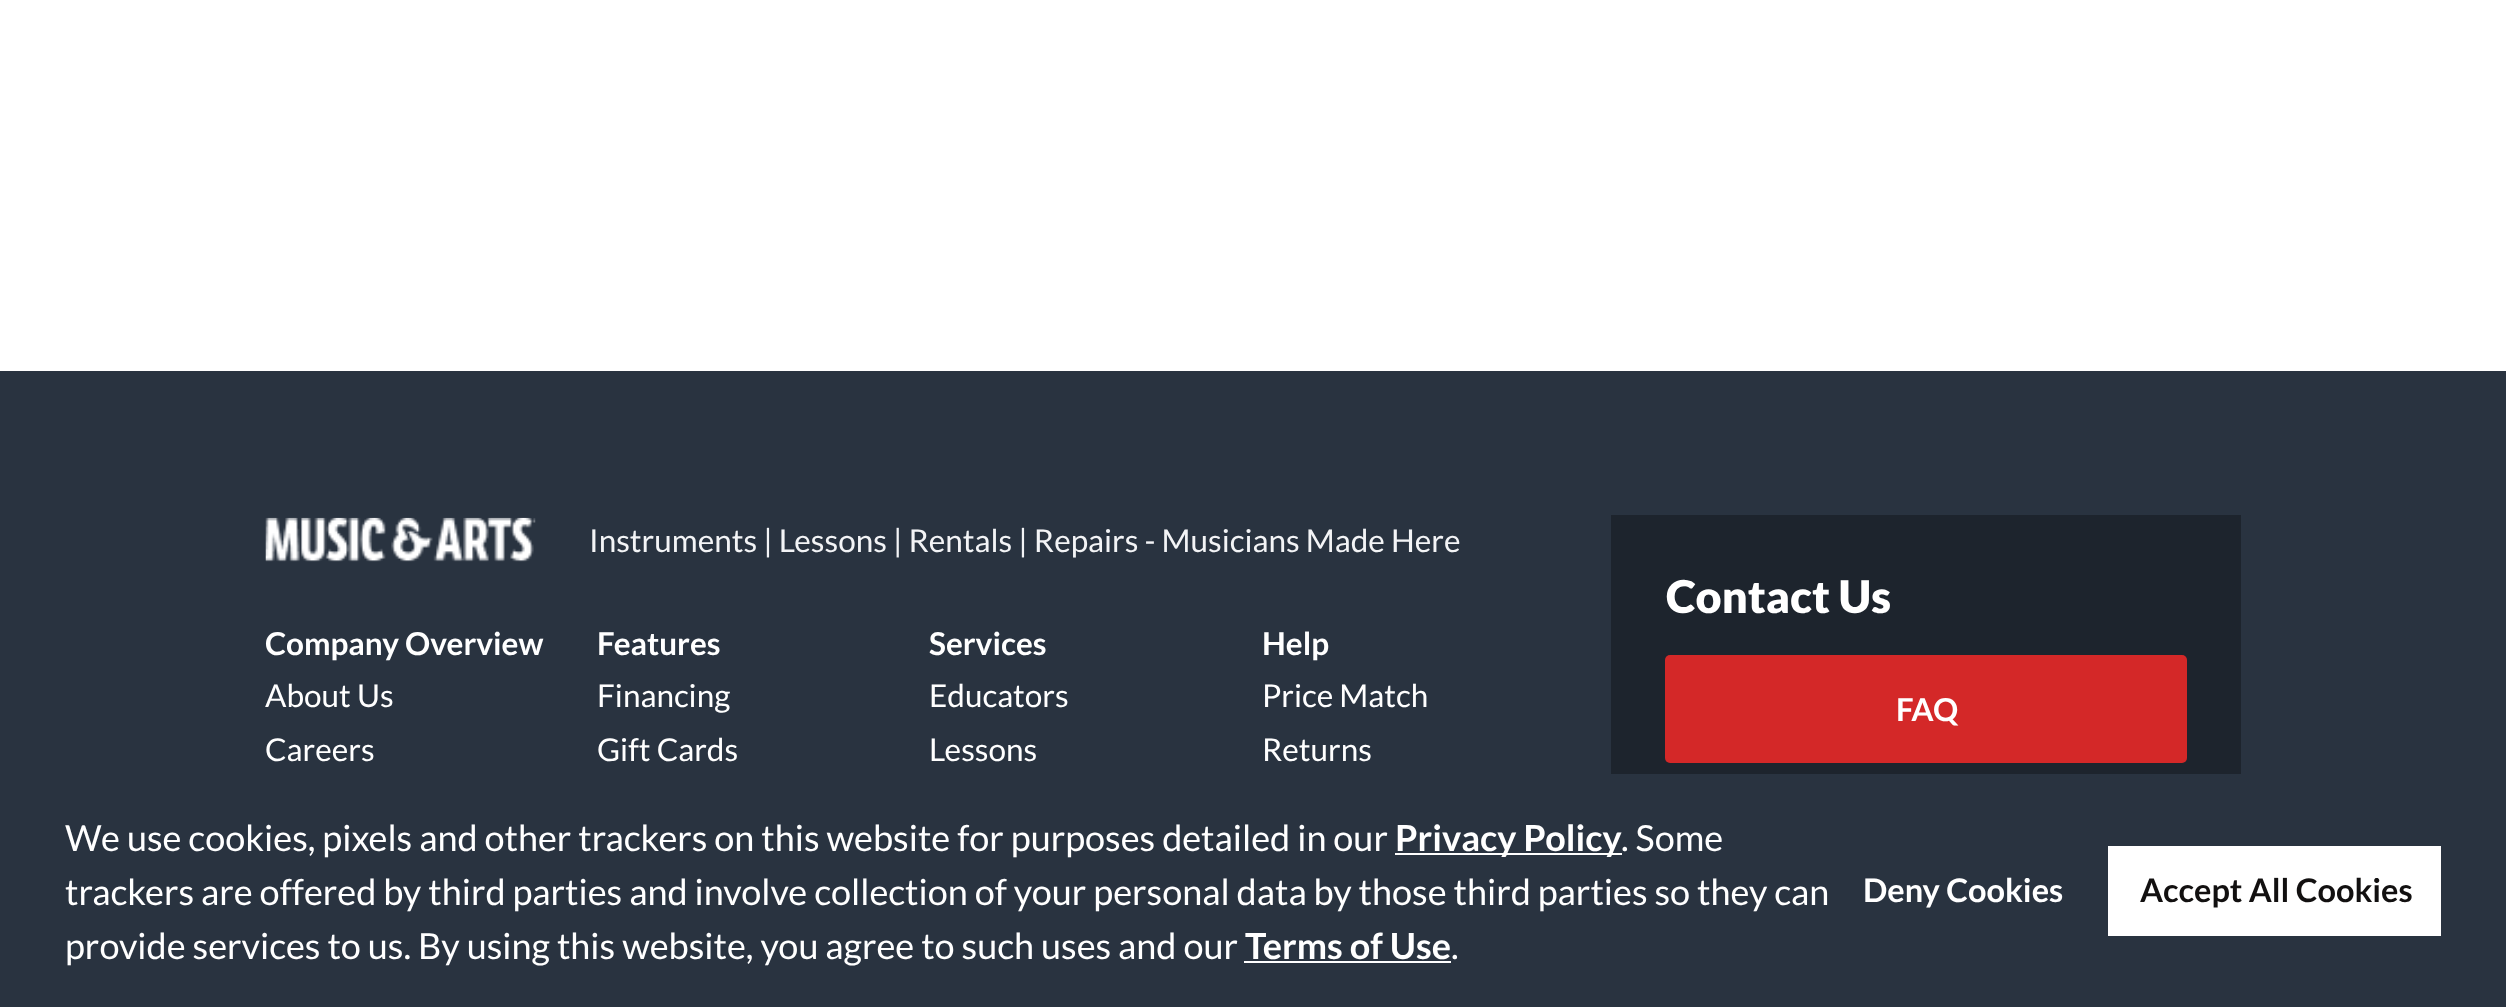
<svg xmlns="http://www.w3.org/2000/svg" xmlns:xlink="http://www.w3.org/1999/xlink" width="2506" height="1007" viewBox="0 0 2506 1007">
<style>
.cls-1{font:31.5px Lato;fill:#f3f4f6}
.cls-2{font:bold 31.5px Lato;fill:#ffffff}
.cls-3{font:31.5px Lato;fill:#ffffff}
.cls-4{font:900 45px Lato;fill:#ffffff}
.cls-5{font:36px Lato;fill:#ffffff}
.cls-6{font:bold 36px Lato;fill:#ffffff}
.cls-7{font:bold 32.5px Lato;fill:#ffffff}
.cls-8{font:bold 32.5px Lato;fill:#121010}
</style>
<rect width="100%" height="100%" fill="#ffffff"/>
<rect fill="#293340" x="0" y="371" width="2506" height="636"/>
<image xlink:href="image0.png" x="265" y="517" width="271" height="45"/>
<rect fill="#1d242d" x="1611" y="515" width="630" height="259"/>
<rect fill="#d42828" x="1665" y="655" width="522" height="108" rx="5"/>
<rect fill="#ffffff" x="1395" y="853" width="227" height="2"/>
<rect fill="#ffffff" x="1244" y="961" width="207" height="2"/>
<rect fill="#ffffff" x="2108" y="846" width="333" height="90"/>
<text class="cls-1" x="589" y="552">Instruments | Lessons | Rentals | Repairs - Musicians Made Here</text>
<text class="cls-2" x="265" y="655">Company Overview</text>
<text class="cls-3"><tspan x="265" y="707">About Us</tspan><tspan x="265" y="761">Careers</tspan></text>
<text class="cls-2" x="597" y="655">Features</text>
<text class="cls-3"><tspan x="597" y="707">Financing</tspan><tspan x="597" y="761">Gift Cards</tspan></text>
<text class="cls-2" x="929" y="655">Services</text>
<text class="cls-3"><tspan x="929" y="707">Educators</tspan><tspan x="929" y="761">Lessons</tspan></text>
<text class="cls-2" x="1262" y="655">Help</text>
<text class="cls-3"><tspan x="1262" y="707">Price Match</tspan><tspan x="1262" y="761">Returns</tspan></text>
<text class="cls-4" x="1666" y="613">Contact Us</text>
<text class="cls-2" x="1896" y="721">FAQ</text>
<text class="cls-5" x="65" y="851">We use cookies, pixels and other trackers on this website for purposes detailed in our</text>
<text class="cls-6" x="1395" y="851">Privacy Policy</text>
<text class="cls-5" x="1621" y="851">. Some</text>
<text class="cls-5"><tspan x="65" y="905">trackers are offered by third parties and involve collection of your personal data by those third parties so they can</tspan><tspan x="65" y="959">provide services to us. By using this website, you agree to such uses and our</tspan></text>
<text class="cls-6" x="1245" y="959">Terms of Use</text>
<text class="cls-5" x="1451" y="959">.</text>
<text class="cls-7" x="1863" y="902">Deny Cookies</text>
<text class="cls-8" x="2140" y="902">Accept All Cookies</text>
</svg>
